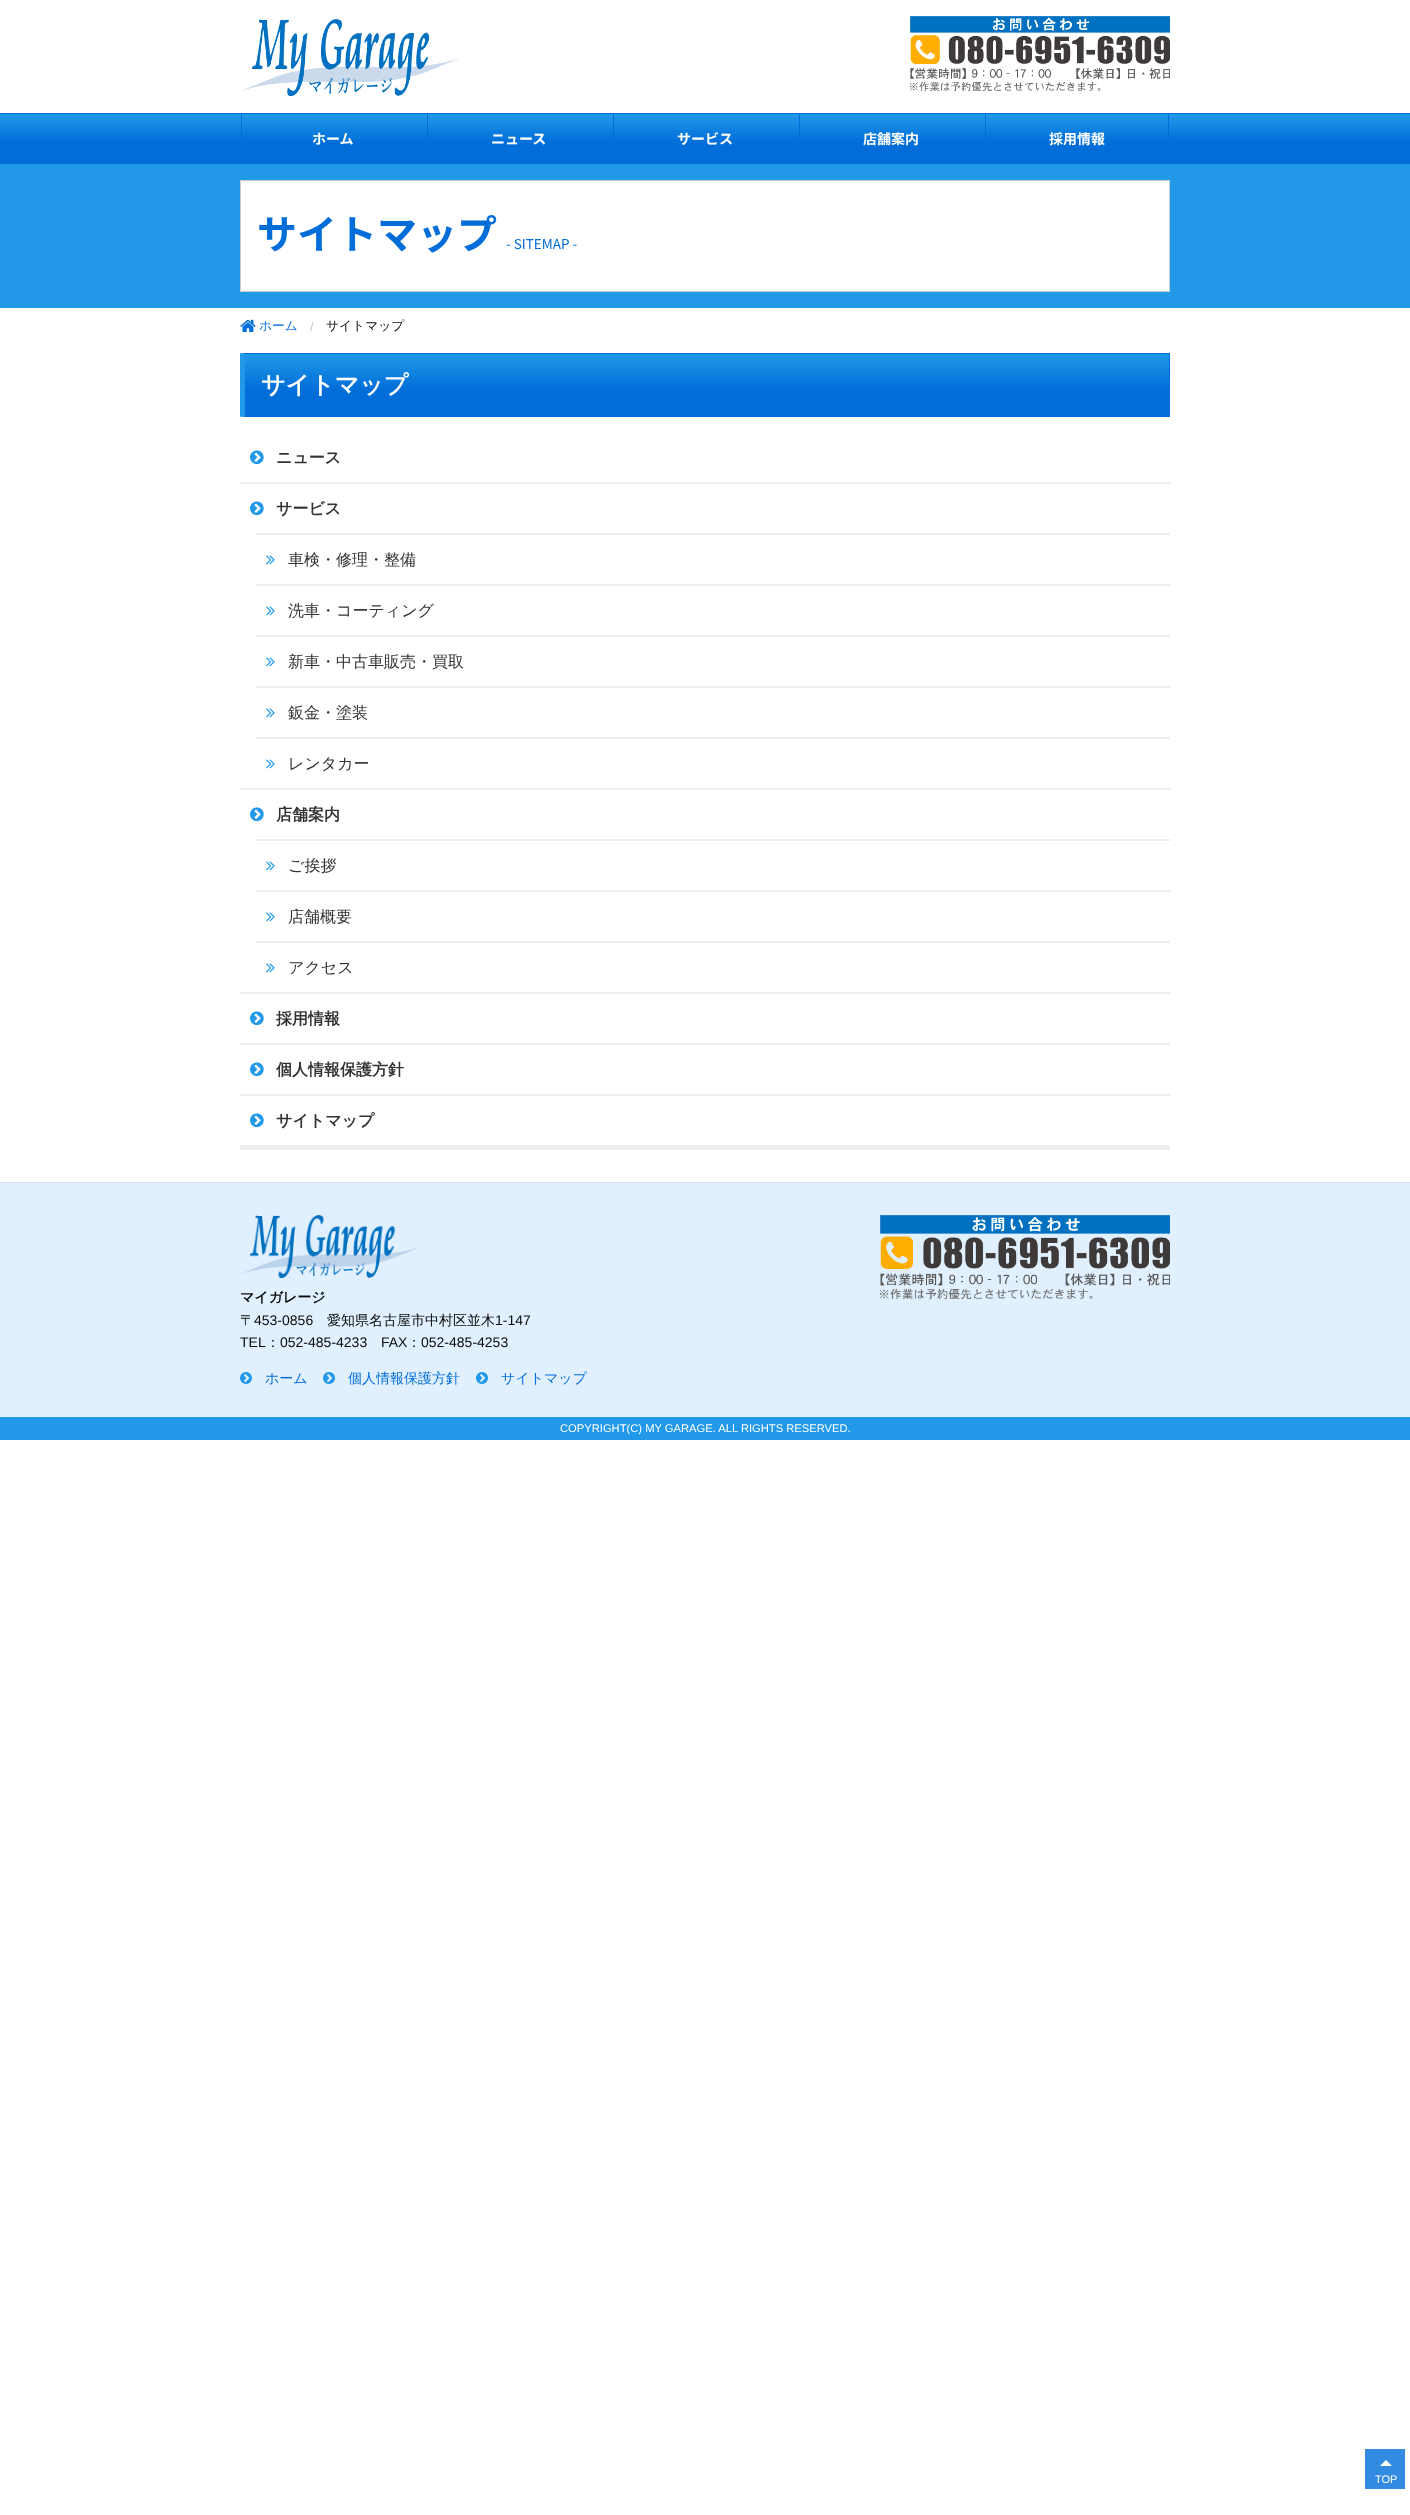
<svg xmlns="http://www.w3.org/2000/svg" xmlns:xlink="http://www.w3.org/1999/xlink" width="1410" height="2515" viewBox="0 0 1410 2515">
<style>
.cls-1{font:bold 14px Noto Sans JP;fill:#ffffff}
.cls-2{font:bold 40px Noto Sans JP;fill:#006dd9}
.cls-3{font:13.5px Noto Sans JP;fill:#006dd9}
.cls-4{font:500 12.75px WenQuanYi Zen Hei;fill:#006dd9}
.cls-5{font:12.75px Liberation Sans;fill:#cacaca}
.cls-6{font:500 12.75px WenQuanYi Zen Hei;fill:#0a0a0a}
.cls-7{font:bold 24px WenQuanYi Zen Hei;fill:#ffffff}
.cls-8{font:bold 16px WenQuanYi Zen Hei;fill:#333333}
.cls-9{font:500 16px WenQuanYi Zen Hei;fill:#333333}
.cls-10{font:bold 14px WenQuanYi Zen Hei;fill:#0a0a0a}
.cls-11{font:500 14px WenQuanYi Zen Hei;fill:#0a0a0a}
.cls-12{font:14px Liberation Sans;fill:#0a0a0a}
.cls-13{font:500 14px WenQuanYi Zen Hei;fill:#006dd9}
.cls-14{font:11.2px Liberation Sans;fill:#ffffff}
.cls-15{font:11px Liberation Sans;fill:#ffffff}
</style>
<defs>
<linearGradient id="g1" gradientUnits="userSpaceOnUse" x1="705" y1="65" x2="705" y2="114"><stop offset="0" stop-color="#2199e8"/><stop offset="0.59" stop-color="#006dd9"/></linearGradient>
<linearGradient id="g2" gradientUnits="userSpaceOnUse" x1="705" y1="114" x2="705" y2="163"><stop offset="0" stop-color="#2199e8"/><stop offset="0.59" stop-color="#006dd9"/></linearGradient>
<linearGradient id="g3" gradientUnits="userSpaceOnUse" x1="707" y1="354" x2="707" y2="416"><stop offset="0" stop-color="#2199e8"/><stop offset="0.59" stop-color="#006dd9"/></linearGradient>
</defs>
<rect width="100%" height="100%" fill="#ffffff"/>
<image xlink:href="image0.png" x="241" y="19" width="219" height="77"/>
<image xlink:href="image1.png" x="910" y="16" width="260" height="75"/>
<rect fill="url(#g1)" x="0" y="113" width="1410" height="1"/>
<rect fill="url(#g2)" x="0" y="114" width="1410" height="49"/>
<rect fill="#006dd9" x="0" y="163" width="1410" height="1"/>
<rect fill="#006dd9" x="241" y="114" width="1" height="27"/>
<rect fill="#006dd9" x="427" y="114" width="1" height="27"/>
<rect fill="#006dd9" x="613" y="114" width="1" height="27"/>
<rect fill="#006dd9" x="799" y="114" width="1" height="27"/>
<rect fill="#006dd9" x="985" y="114" width="1" height="27"/>
<rect fill="#006dd9" x="1168" y="114" width="1" height="27"/>
<rect fill="#2199e8" x="0" y="164" width="1410" height="144"/>
<rect fill="#ffffff" stroke="#cccccc" x="240.5" y="180.5" width="929" height="111"/>
<image xlink:href="image2.png" x="240" y="319" width="16" height="13"/>
<rect fill="url(#g3)" x="245" y="354" width="924" height="62"/>
<path fill="#006dd9" d="M240 353H1170L1169 354H245Z"/>
<rect fill="#006dd9" x="1169" y="353" width="1" height="64"/>
<path fill="#006dd9" d="M1170 417H240L245 416H1169Z"/>
<path fill="#2199e8" d="M240 417V353L245 354V416Z"/>
<rect fill="#eeeeee" x="240" y="1145" width="930" height="5"/>
<rect fill="#eeeeee" x="240" y="482" width="930" height="2"/>
<image xlink:href="image3.png" x="250" y="450" width="14" height="15"/>
<rect fill="#eeeeee" x="240" y="788" width="930" height="2"/>
<image xlink:href="image3.png" x="250" y="501" width="14" height="15"/>
<rect fill="#eeeeee" x="256" y="533" width="914" height="2"/>
<image xlink:href="image4.png" x="266" y="555" width="9" height="10"/>
<rect fill="#eeeeee" x="256" y="584" width="914" height="2"/>
<image xlink:href="image4.png" x="266" y="606" width="9" height="10"/>
<rect fill="#eeeeee" x="256" y="635" width="914" height="2"/>
<image xlink:href="image4.png" x="266" y="657" width="9" height="10"/>
<rect fill="#eeeeee" x="256" y="686" width="914" height="2"/>
<image xlink:href="image4.png" x="266" y="708" width="9" height="10"/>
<rect fill="#eeeeee" x="256" y="737" width="914" height="2"/>
<image xlink:href="image4.png" x="266" y="759" width="9" height="10"/>
<rect fill="#eeeeee" x="240" y="992" width="930" height="2"/>
<image xlink:href="image3.png" x="250" y="807" width="14" height="15"/>
<rect fill="#eeeeee" x="256" y="839" width="914" height="2"/>
<image xlink:href="image4.png" x="266" y="861" width="9" height="10"/>
<rect fill="#eeeeee" x="256" y="890" width="914" height="2"/>
<image xlink:href="image4.png" x="266" y="912" width="9" height="10"/>
<rect fill="#eeeeee" x="256" y="941" width="914" height="2"/>
<image xlink:href="image4.png" x="266" y="963" width="9" height="10"/>
<rect fill="#eeeeee" x="240" y="1043" width="930" height="2"/>
<image xlink:href="image3.png" x="250" y="1011" width="14" height="15"/>
<rect fill="#eeeeee" x="240" y="1094" width="930" height="2"/>
<image xlink:href="image3.png" x="250" y="1062" width="14" height="15"/>
<image xlink:href="image3.png" x="250" y="1113" width="14" height="15"/>
<rect fill="#e1f0ff" x="0" y="1183" width="1410" height="234"/>
<rect fill="#dddddd" x="0" y="1182" width="1410" height="1"/>
<image xlink:href="image5.png" x="880" y="1215" width="290" height="84"/>
<image xlink:href="image6.png" x="242" y="1215" width="177" height="63"/>
<image xlink:href="image7.png" x="240" y="1372" width="12" height="12"/>
<image xlink:href="image7.png" x="323" y="1372" width="12" height="12"/>
<image xlink:href="image7.png" x="476" y="1372" width="12" height="12"/>
<rect fill="#2199e8" x="0" y="1417" width="1410" height="23"/>
<rect fill="#338ae1" x="1365" y="2449" width="40" height="40"/>
<path fill="#ffffff" d="M1392 2466H1380L1386 2460Z"/>
<text class="cls-1" x="312" y="144">ホーム</text>
<text class="cls-1" x="491" y="144">ニュース</text>
<text class="cls-1" x="677" y="144">サービス</text>
<text class="cls-1" x="863" y="144">店舗案内</text>
<text class="cls-1" x="1049" y="144">採用情報</text>
<text class="cls-2" x="257" y="249">サイトマップ</text>
<text class="cls-3" x="506" y="249">- SITEMAP -</text>
<text class="cls-4" x="259" y="330">ホーム</text>
<text class="cls-5" x="310" y="331">/</text>
<text class="cls-6" x="326" y="330">サイトマップ</text>
<text class="cls-7" x="261" y="393">サイトマップ</text>
<text class="cls-8" x="276" y="463">ニュース</text>
<text class="cls-8" x="276" y="514">サービス</text>
<text class="cls-9" x="288" y="565">車検・修理・整備</text>
<text class="cls-9" x="288" y="616">洗車・コーティング</text>
<text class="cls-9" x="288" y="667">新車・中古車販売・買取</text>
<text class="cls-9" x="288" y="718">鈑金・塗装</text>
<text class="cls-9" x="288" y="769">レンタカー</text>
<text class="cls-8" x="276" y="820">店舗案内</text>
<text class="cls-9" x="288" y="871">ご挨拶</text>
<text class="cls-9" x="288" y="922">店舗概要</text>
<text class="cls-9" x="288" y="973">アクセス</text>
<text class="cls-8" x="276" y="1024">採用情報</text>
<text class="cls-8" x="276" y="1075">個人情報保護方針</text>
<text class="cls-8" x="276" y="1126">サイトマップ</text>
<text class="cls-10" x="240" y="1302">マイガレージ</text>
<text class="cls-11" x="240" y="1325">〒</text>
<text class="cls-12" x="254" y="1325">453-0856</text>
<text class="cls-11" x="327" y="1325">愛知県名古屋市中村区並木</text>
<text class="cls-12" x="495" y="1325">1-147</text>
<text class="cls-12" x="240" y="1347">TEL</text>
<text class="cls-11" x="266" y="1347">：</text>
<text class="cls-12" x="280" y="1347">052-485-4233</text>
<text class="cls-12" x="381" y="1347">FAX</text>
<text class="cls-11" x="407" y="1347">：</text>
<text class="cls-12" x="421" y="1347">052-485-4253</text>
<text class="cls-13" x="265" y="1383">ホーム</text>
<text class="cls-13" x="348" y="1383">個人情報保護方針</text>
<text class="cls-13" x="501" y="1383">サイトマップ</text>
<text class="cls-14" x="560" y="1432">COPYRIGHT(C) MY GARAGE. ALL RIGHTS RESERVED.</text>
<text class="cls-15" x="1375" y="2483">TOP</text>
</svg>
